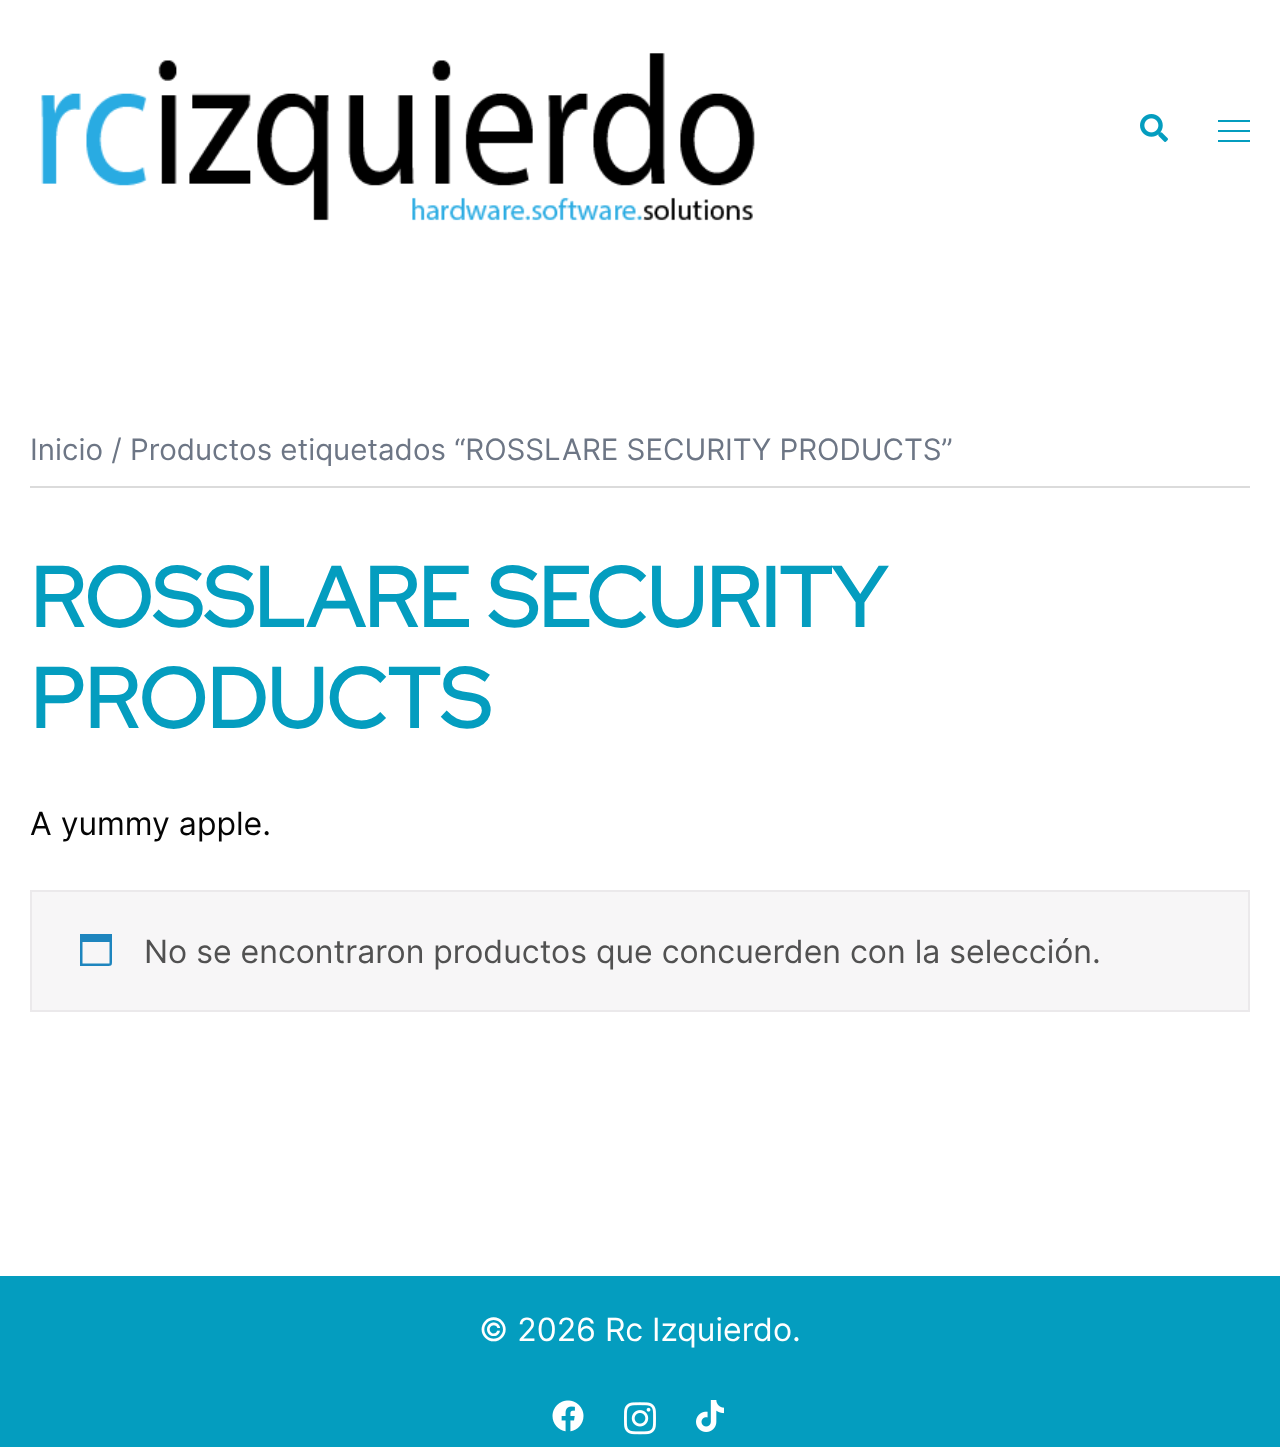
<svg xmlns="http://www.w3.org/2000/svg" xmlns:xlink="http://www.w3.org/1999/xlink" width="1280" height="1447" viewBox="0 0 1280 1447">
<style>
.cls-1{font:29.45px Inter;fill:#6d7685}
.cls-2{font:bold 84px Red Hat Display;fill:#049dbf}
.cls-3{font:32px Inter;fill:#050505}
.cls-4{font:32px Inter;fill:#515151}
.cls-5{font:32px Inter;fill:#ffffff}
</style>
<rect width="100%" height="100%" fill="#ffffff"/>
<image xlink:href="image0.png" x="41" y="53" width="714" height="168"/>
<image xlink:href="image1.png" x="1140" y="114" width="28" height="28"/>
<rect fill="#049dbf" x="1218" y="120" width="32" height="2"/>
<rect fill="#049dbf" x="1218" y="130" width="32" height="2"/>
<rect fill="#049dbf" x="1218" y="140" width="32" height="2"/>
<rect fill="#dbdbdb" x="30" y="486" width="1220" height="2"/>
<rect fill="#f7f6f7" stroke="#ebe9eb" stroke-width="2" x="31" y="891" width="1218" height="120"/>
<path fill="#1e85be" d="M109.5 942H82.5V963.5H109.5ZM112 934V958.5C112 966.5 112.5 966 104.5 966H80V934Z"/>
<rect fill="#049dbf" x="0" y="1276" width="1280" height="171"/>
<image xlink:href="image2.png" x="552" y="1400" width="32" height="32"/>
<image xlink:href="image3.png" x="624" y="1402" width="32" height="33"/>
<image xlink:href="image4.png" x="696" y="1400" width="28" height="32"/>
<text class="cls-1" x="30" y="460">Inicio / Productos etiquetados “ROSSLARE SECURITY PRODUCTS”</text>
<text class="cls-2"><tspan x="30" y="627">ROSSLARE SECURITY</tspan><tspan x="30" y="728">PRODUCTS</tspan></text>
<text class="cls-3" x="30" y="835">A yummy apple.</text>
<text class="cls-4" x="144" y="963">No se encontraron productos que concuerden con la selección.</text>
<text class="cls-5" x="479" y="1341">© 2026 Rc Izquierdo.</text>
</svg>
